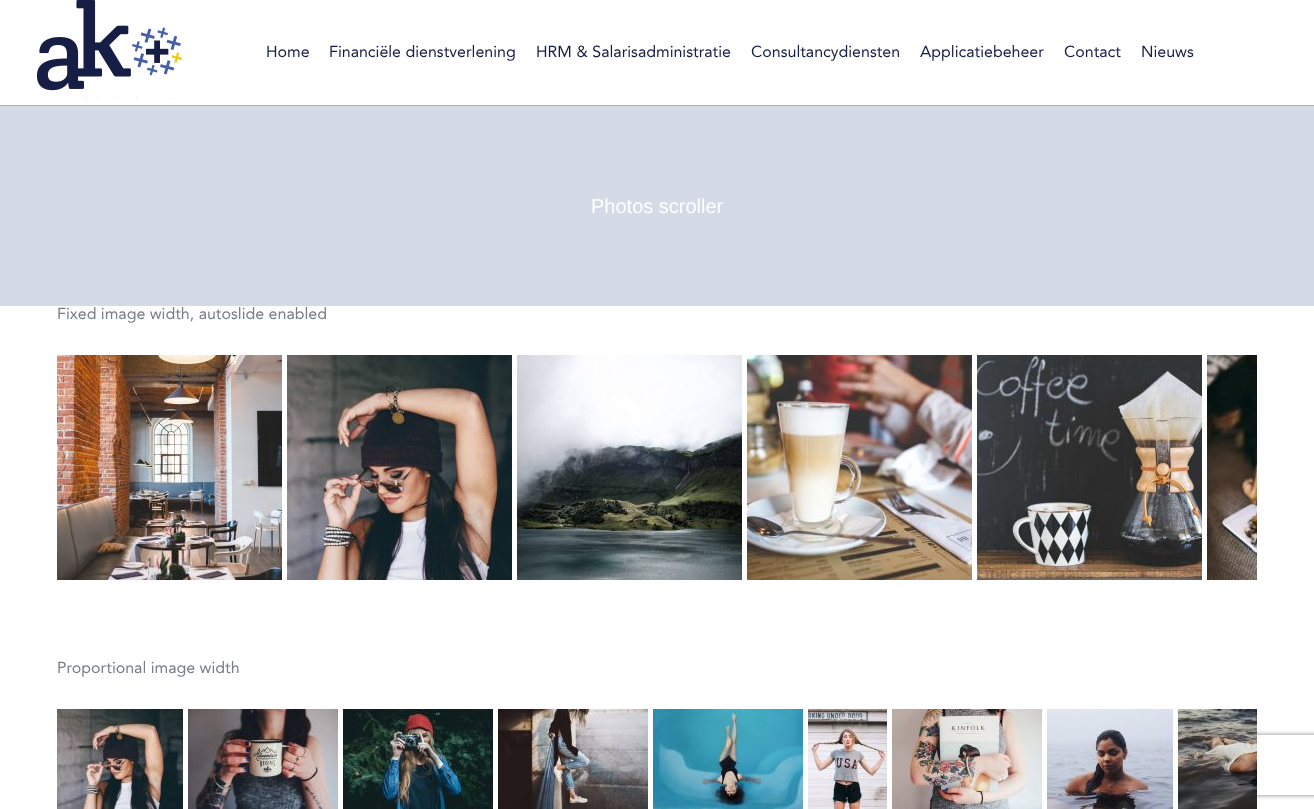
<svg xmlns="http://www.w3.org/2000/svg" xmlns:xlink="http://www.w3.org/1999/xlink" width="1314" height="809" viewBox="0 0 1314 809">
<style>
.cls-1{font:16px Avenir;fill:#161e46}
.cls-2{font:20px Liberation Sans;fill:#ffffff}
.cls-3{font:16px Avenir;fill:#787d85}
</style>
<defs>
<clipPath id="clip1"><path d="M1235 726H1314V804H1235ZM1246 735H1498C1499 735 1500 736 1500 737V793C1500 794 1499 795 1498 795H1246C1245 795 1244 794 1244 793V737C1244 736 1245 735 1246 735Z" clip-rule="evenodd"/></clipPath>
</defs>
<rect width="100%" height="100%" fill="#ffffff"/>
<rect fill="#adb0b6" x="0" y="105" width="1314" height="1"/>
<image xlink:href="image0.png" x="37" y="0" width="145" height="99"/>
<rect fill="#d5dae7" x="0" y="106" width="1314" height="200"/>
<image xlink:href="image1.png" x="57" y="355" width="225" height="225"/>
<image xlink:href="image2.png" x="287" y="355" width="225" height="225"/>
<image xlink:href="image3.png" x="517" y="355" width="225" height="225"/>
<image xlink:href="image4.png" x="747" y="355" width="225" height="225"/>
<image xlink:href="image5.png" x="977" y="355" width="225" height="225"/>
<image xlink:href="image6.png" x="1207" y="355" width="50" height="225"/>
<image xlink:href="image7.png" x="57" y="709" width="126" height="100"/>
<image xlink:href="image8.png" x="188" y="709" width="150" height="100"/>
<image xlink:href="image9.png" x="343" y="709" width="150" height="100"/>
<image xlink:href="image10.png" x="498" y="709" width="150" height="100"/>
<image xlink:href="image11.png" x="653" y="709" width="150" height="100"/>
<image xlink:href="image12.png" x="808" y="709" width="79" height="100"/>
<image xlink:href="image13.png" x="892" y="709" width="150" height="100"/>
<image xlink:href="image14.png" x="1047" y="709" width="126" height="100"/>
<g clip-path="url(#clip1)">
<rect fill="#808080" filter="blur(2.5px)" x="1244" y="735" width="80" height="60" rx="2"/>
</g>
<image xlink:href="image15.png" x="1178" y="709" width="79" height="100"/>
<text class="cls-1" x="266" y="57">Home</text>
<text class="cls-1" x="329" y="57">Financiële dienstverlening</text>
<text class="cls-1" x="536" y="57">HRM &amp; Salarisadministratie</text>
<text class="cls-1" x="751" y="57">Consultancydiensten</text>
<text class="cls-1" x="920" y="57">Applicatiebeheer</text>
<text class="cls-1" x="1064" y="57">Contact</text>
<text class="cls-1" x="1141" y="57">Nieuws</text>
<text class="cls-2" x="591" y="213">Photos scroller</text>
<text class="cls-3" x="57" y="319">Fixed image width, autoslide enabled</text>
<text class="cls-3" x="57" y="673">Proportional image width</text>
</svg>
